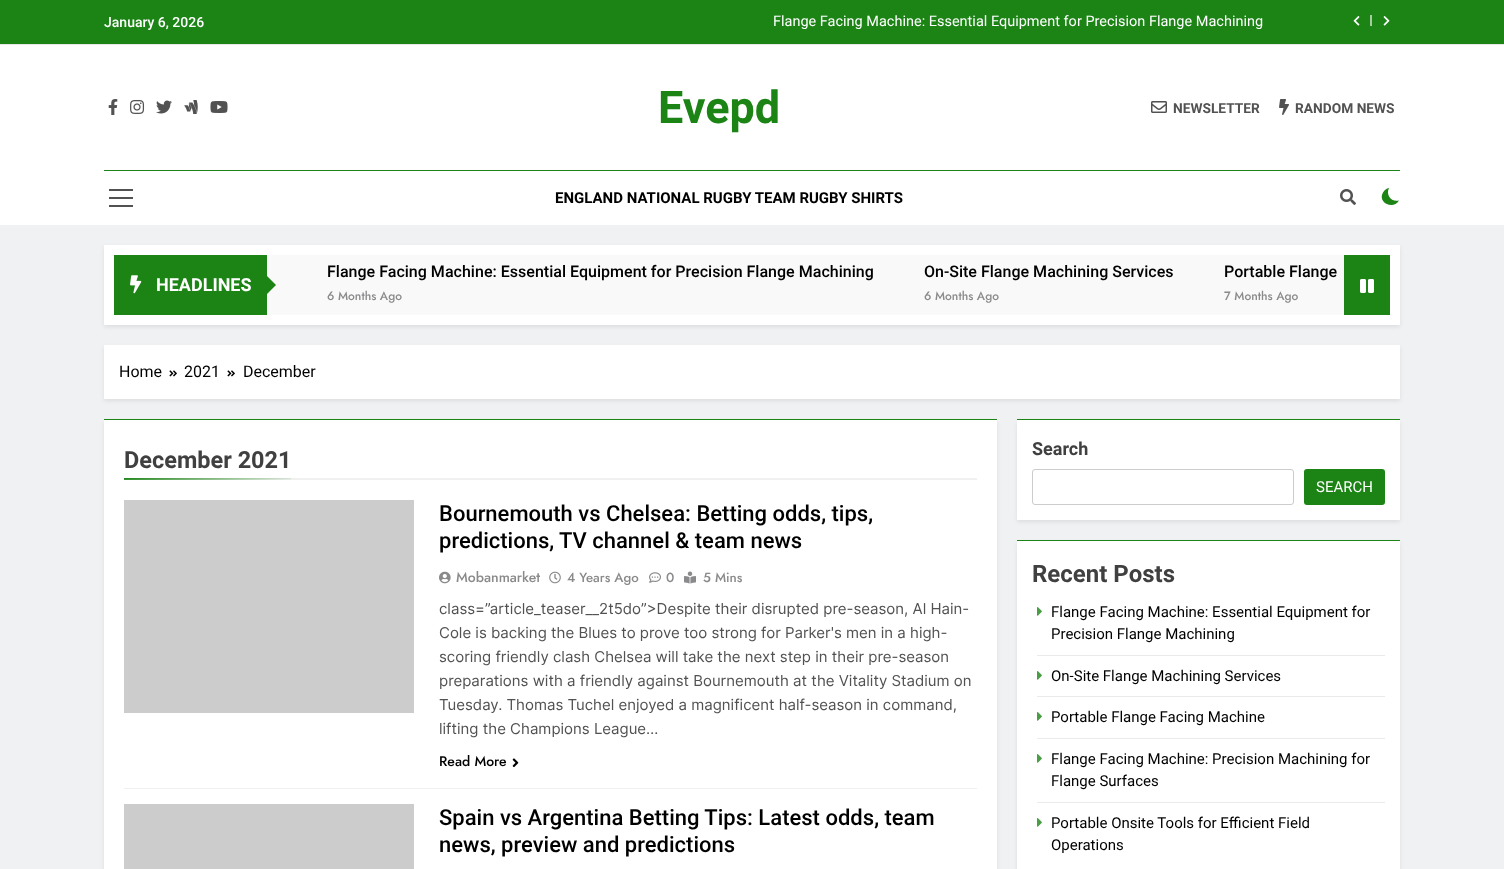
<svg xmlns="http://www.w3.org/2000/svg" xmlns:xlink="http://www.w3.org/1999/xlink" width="1504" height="869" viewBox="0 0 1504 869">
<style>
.cls-1{font:500 14px Roboto;fill:#ffffff}
.cls-2{font:14.5px Roboto;fill:#ffffff}
.cls-3{font:bold 45px Roboto;fill:#1b8415}
.cls-4{font:bold 13.75px Roboto;fill:#525252}
.cls-5{font:bold 15px Roboto;fill:#000000}
.cls-6{font:bold 18px Roboto;fill:#ffffff}
.cls-7{font:500 16.05px Roboto;fill:#000000}
.cls-8{font:500 12px Jost;fill:#8a8a8c}
.cls-9{font:16px Roboto;fill:#000000}
.cls-10{font:bold 23.5px Roboto;fill:#404040}
.cls-11{font:500 22px Roboto;fill:#000000}
.cls-12{font:500 14px Jost;fill:#8a8a8c}
.cls-13{font:500 13.25px Jost;fill:#8a8a8c}
.cls-14{font:15px Inter;fill:#525252}
.cls-15{font:500 14px Jost;fill:#000000}
.cls-16{font:bold 18px Roboto;fill:#404040}
.cls-17{font:15px Roboto;fill:#ffffff}
.cls-18{font:bold 24px Roboto;fill:#404040}
.cls-19{font:15px Roboto;fill:#000000}
</style>
<defs>
<linearGradient id="g1" gradientUnits="userSpaceOnUse" x1="207" y1="472" x2="208" y2="486"><stop offset="0" stop-color="#1b8415"/><stop offset="1" stop-color="#f0f0f0"/></linearGradient>
</defs>
<rect width="100%" height="100%" fill="#f0f1f2"/>
<rect fill="#1b8415" x="0" y="0" width="1504" height="44"/>
<rect fill="#e8e8e8" x="0" y="44" width="1504" height="1"/>
<image xlink:href="image0.png" x="1353" y="16" width="7" height="10"/>
<rect fill="#a4cea1" x="1370" y="15" width="2" height="11"/>
<image xlink:href="image1.png" x="1383" y="16" width="7" height="10"/>
<rect fill="#ffffff" x="0" y="45" width="1504" height="180"/>
<image xlink:href="image2.png" x="108" y="99" width="10" height="16"/>
<image xlink:href="image3.png" x="130" y="100" width="15" height="14"/>
<image xlink:href="image4.png" x="156" y="100" width="16" height="14"/>
<image xlink:href="image5.png" x="184" y="100" width="14" height="14"/>
<image xlink:href="image6.png" x="210" y="101" width="18" height="12"/>
<image xlink:href="image7.png" x="1151" y="101" width="16" height="12"/>
<image xlink:href="image8.png" x="1279" y="99" width="10" height="16"/>
<rect fill="#1b8415" x="104" y="170" width="1296" height="1"/>
<rect fill="#525252" x="109" y="189" width="24" height="2"/>
<rect fill="#525252" x="109" y="197" width="24" height="2"/>
<rect fill="#525252" x="109" y="205" width="24" height="2"/>
<image xlink:href="image9.png" x="1340" y="189" width="16" height="16"/>
<path fill="#1b8415" d="M1399 200.5C1391.5 202.5 1385.5 195 1389 188C1386.5 188.5 1384.5 190 1383 192.5C1377 202.5 1393.5 210.5 1399 200.5Z"/>
<rect fill="#000000" fill-opacity="0.08" filter="blur(2px)" x="104" y="247" width="1296" height="80"/>
<rect fill="#ffffff" x="104" y="245" width="1296" height="80"/>
<rect fill="#1b8415" x="114" y="255" width="153" height="60"/>
<image xlink:href="image10.png" x="130" y="275" width="12" height="19"/>
<rect fill="#f9f9f9" x="267" y="255" width="1077" height="60"/>
<path fill="#1b8415" d="M266 295V275L276 285Z"/>
<rect fill="#1b8415" x="1344" y="255" width="46" height="60"/>
<image xlink:href="image11.png" x="1360" y="279" width="14" height="14"/>
<rect fill="#000000" fill-opacity="0.08" filter="blur(2px)" x="104" y="347" width="1296" height="54"/>
<rect fill="#ffffff" x="104" y="345" width="1296" height="54"/>
<image xlink:href="image12.png" x="169" y="370" width="8" height="7"/>
<image xlink:href="image12.png" x="227" y="370" width="8" height="7"/>
<rect fill="#000000" fill-opacity="0.08" filter="blur(2px)" x="104" y="422" width="893" height="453"/>
<rect fill="#ffffff" x="104" y="420" width="893" height="449"/>
<rect fill="#1b8415" x="104" y="419" width="893" height="1"/>
<rect fill="#f0f0f0" x="291" y="478" width="686" height="2"/>
<rect fill="url(#g1)" x="124" y="478" width="167" height="2"/>
<rect fill="#f0f0f0" x="124" y="788" width="853" height="1"/>
<rect fill="#cccccc" x="124" y="500" width="290" height="213"/>
<image xlink:href="image13.png" x="439" y="571" width="12" height="13"/>
<image xlink:href="image14.png" x="549" y="571" width="12" height="13"/>
<image xlink:href="image15.png" x="649" y="572" width="12" height="11"/>
<image xlink:href="image16.png" x="684" y="571" width="12" height="13"/>
<image xlink:href="image17.png" x="512" y="758" width="7" height="10"/>
<rect fill="#cccccc" x="124" y="804" width="290" height="65"/>
<rect fill="#000000" fill-opacity="0.08" filter="blur(2px)" x="1017" y="422" width="383" height="100"/>
<rect fill="#ffffff" x="1017" y="420" width="383" height="100"/>
<rect fill="#1b8415" x="1017" y="419" width="383" height="1"/>
<rect fill="none" stroke="#cccccc" x="1032.5" y="469.5" width="261" height="35" rx="2.5"/>
<rect fill="#1b8415" x="1304" y="469" width="81" height="36" rx="3"/>
<rect fill="#000000" fill-opacity="0.08" filter="blur(2px)" x="1017" y="543" width="383" height="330"/>
<rect fill="#ffffff" x="1017" y="541" width="383" height="328"/>
<rect fill="#1b8415" x="1017" y="540" width="383" height="1"/>
<rect fill="#eaeaea" x="1037" y="655" width="348" height="1"/>
<image xlink:href="image18.png" x="1037" y="607" width="5" height="9"/>
<rect fill="#eaeaea" x="1037" y="696" width="348" height="1"/>
<image xlink:href="image18.png" x="1037" y="671" width="5" height="9"/>
<rect fill="#eaeaea" x="1037" y="738" width="348" height="1"/>
<image xlink:href="image18.png" x="1037" y="712" width="5" height="9"/>
<rect fill="#eaeaea" x="1037" y="802" width="348" height="1"/>
<image xlink:href="image18.png" x="1037" y="754" width="5" height="9"/>
<image xlink:href="image18.png" x="1037" y="818" width="5" height="9"/>
<text class="cls-1" x="104" y="27">January 6, 2026</text>
<text class="cls-2" x="773" y="26">Flange Facing Machine: Essential Equipment for Precision Flange Machining</text>
<text class="cls-3" x="658" y="123">Evepd</text>
<text class="cls-4" x="1173" y="113">NEWSLETTER</text>
<text class="cls-4" x="1295" y="113">RANDOM NEWS</text>
<text class="cls-5" x="555" y="203">ENGLAND NATIONAL RUGBY TEAM RUGBY SHIRTS</text>
<text class="cls-6" x="156" y="291">HEADLINES</text>
<text class="cls-7" x="327" y="277">Flange Facing Machine: Essential Equipment for Precision Flange Machining</text>
<text class="cls-8" x="327" y="300">6 Months Ago</text>
<text class="cls-7" x="924" y="277">On-Site Flange Machining Services</text>
<text class="cls-8" x="924" y="300">6 Months Ago</text>
<text class="cls-7" x="1224" y="277">Portable Flange</text>
<text class="cls-8" x="1224" y="300">7 Months Ago</text>
<text class="cls-9" x="119" y="377">Home</text>
<text class="cls-9" x="184" y="377">2021</text>
<text class="cls-9" x="243" y="377">December</text>
<text class="cls-10" x="124" y="468">December 2021</text>
<text class="cls-11"><tspan x="439" y="521">Bournemouth vs Chelsea: Betting odds, tips,</tspan><tspan x="439" y="548">predictions, TV channel &amp; team news</tspan></text>
<text class="cls-12" x="456" y="582">Mobanmarket</text>
<text class="cls-13" x="567" y="582">4 Years Ago</text>
<text class="cls-13" x="666" y="582">0</text>
<text class="cls-13" x="703" y="582">5 Mins</text>
<text class="cls-14"><tspan x="439" y="614">class=”article_teaser__2t5do”&gt;Despite their disrupted pre-season, Al Hain-</tspan><tspan x="439" y="638">Cole is backing the Blues to prove too strong for Parker's men in a high-</tspan><tspan x="439" y="662">scoring friendly clash Chelsea will take the next step in their pre-season</tspan><tspan x="439" y="686">preparations with a friendly against Bournemouth at the Vitality Stadium on</tspan><tspan x="439" y="710">Tuesday. Thomas Tuchel enjoyed a magnificent half-season in command,</tspan><tspan x="439" y="734">lifting the Champions League…</tspan></text>
<text class="cls-15" x="439" y="766">Read More</text>
<text class="cls-11"><tspan x="439" y="825">Spain vs Argentina Betting Tips: Latest odds, team</tspan><tspan x="439" y="852">news, preview and predictions</tspan></text>
<text class="cls-16" x="1032" y="455">Search</text>
<text class="cls-17" x="1316" y="492">SEARCH</text>
<text class="cls-18" x="1032" y="582">Recent Posts</text>
<text class="cls-19"><tspan x="1051" y="617">Flange Facing Machine: Essential Equipment for</tspan><tspan x="1051" y="639">Precision Flange Machining</tspan></text>
<text class="cls-19" x="1051" y="681">On-Site Flange Machining Services</text>
<text class="cls-19" x="1051" y="722">Portable Flange Facing Machine</text>
<text class="cls-19"><tspan x="1051" y="764">Flange Facing Machine: Precision Machining for</tspan><tspan x="1051" y="786">Flange Surfaces</tspan></text>
<text class="cls-19"><tspan x="1051" y="828">Portable Onsite Tools for Efficient Field</tspan><tspan x="1051" y="850">Operations</tspan></text>
</svg>
